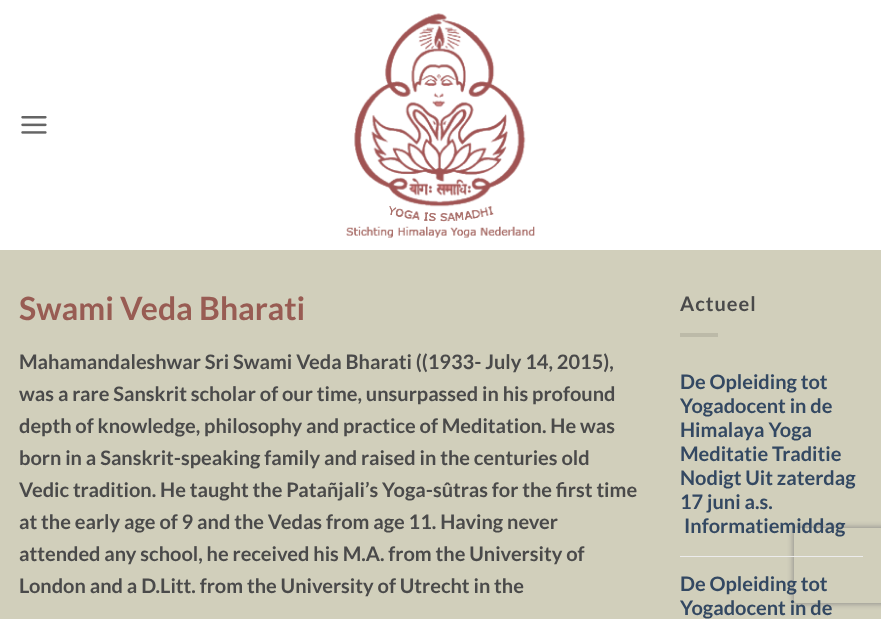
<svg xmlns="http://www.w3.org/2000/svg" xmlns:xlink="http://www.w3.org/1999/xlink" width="881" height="619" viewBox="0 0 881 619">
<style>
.cls-1{font:bold 32px Lato;fill:#985c53}
.cls-2{font:bold 20px Lato;fill:#4a4a4a}
.cls-3{font:bold 20px Lato;letter-spacing:1px;fill:#4a4a4a}
.cls-4{font:bold 20px Lato;fill:#334862}
</style>
<defs>
<clipPath id="clip1"><path d="M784 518H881V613H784ZM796.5 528H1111.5C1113 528 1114 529 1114 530.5V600.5C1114 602 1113 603 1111.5 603H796.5C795 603 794 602 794 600.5V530.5C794 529 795 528 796.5 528Z" clip-rule="evenodd"/></clipPath>
</defs>
<rect width="100%" height="100%" fill="#ffffff"/>
<image xlink:href="image0.png" x="21" y="116" width="26" height="18"/>
<image xlink:href="image1.png" x="346" y="13" width="189" height="225"/>
<rect fill="#d1cfbb" x="0" y="250" width="881" height="369"/>
<rect fill="#bcbaa8" x="680" y="333" width="38" height="4"/>
<g clip-path="url(#clip1)">
<rect fill="#808080" filter="blur(3px)" x="794" y="528" width="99" height="75" rx="2.5"/>
</g>
<rect fill="#ececec" x="680" y="556" width="183" height="1"/>
<text class="cls-1" x="19" y="320">Swami Veda Bharati</text>
<text class="cls-2"><tspan x="19" y="369">Mahamandaleshwar Sri Swami Veda Bharati ((1933- July 14, 2015),</tspan><tspan x="19" y="401">was a rare Sanskrit scholar of our time, unsurpassed in his profound</tspan><tspan x="19" y="433">depth of knowledge, philosophy and practice of Meditation. He was</tspan><tspan x="19" y="465">born in a Sanskrit-speaking family and raised in the centuries old</tspan><tspan x="19" y="497">Vedic tradition. He taught the Patañjali’s Yoga-sûtras for the first time</tspan><tspan x="19" y="529">at the early age of 9 and the Vedas from age 11. Having never</tspan><tspan x="19" y="561">attended any school, he received his M.A. from the University of</tspan><tspan x="19" y="593">London and a D.Litt. from the University of Utrecht in the</tspan></text>
<text class="cls-3" x="680" y="311">Actueel</text>
<text class="cls-4"><tspan x="680" y="389">De Opleiding tot</tspan><tspan x="680" y="413">Yogadocent in de</tspan><tspan x="680" y="437">Himalaya Yoga</tspan><tspan x="680" y="461">Meditatie Traditie</tspan><tspan x="680" y="485">Nodigt Uit zaterdag</tspan><tspan x="680" y="509">17 juni a.s.</tspan></text>
<text class="cls-4" x="684" y="533">Informatiemiddag</text>
<text class="cls-4"><tspan x="680" y="591">De Opleiding tot</tspan><tspan x="680" y="615">Yogadocent in de</tspan></text>
</svg>
